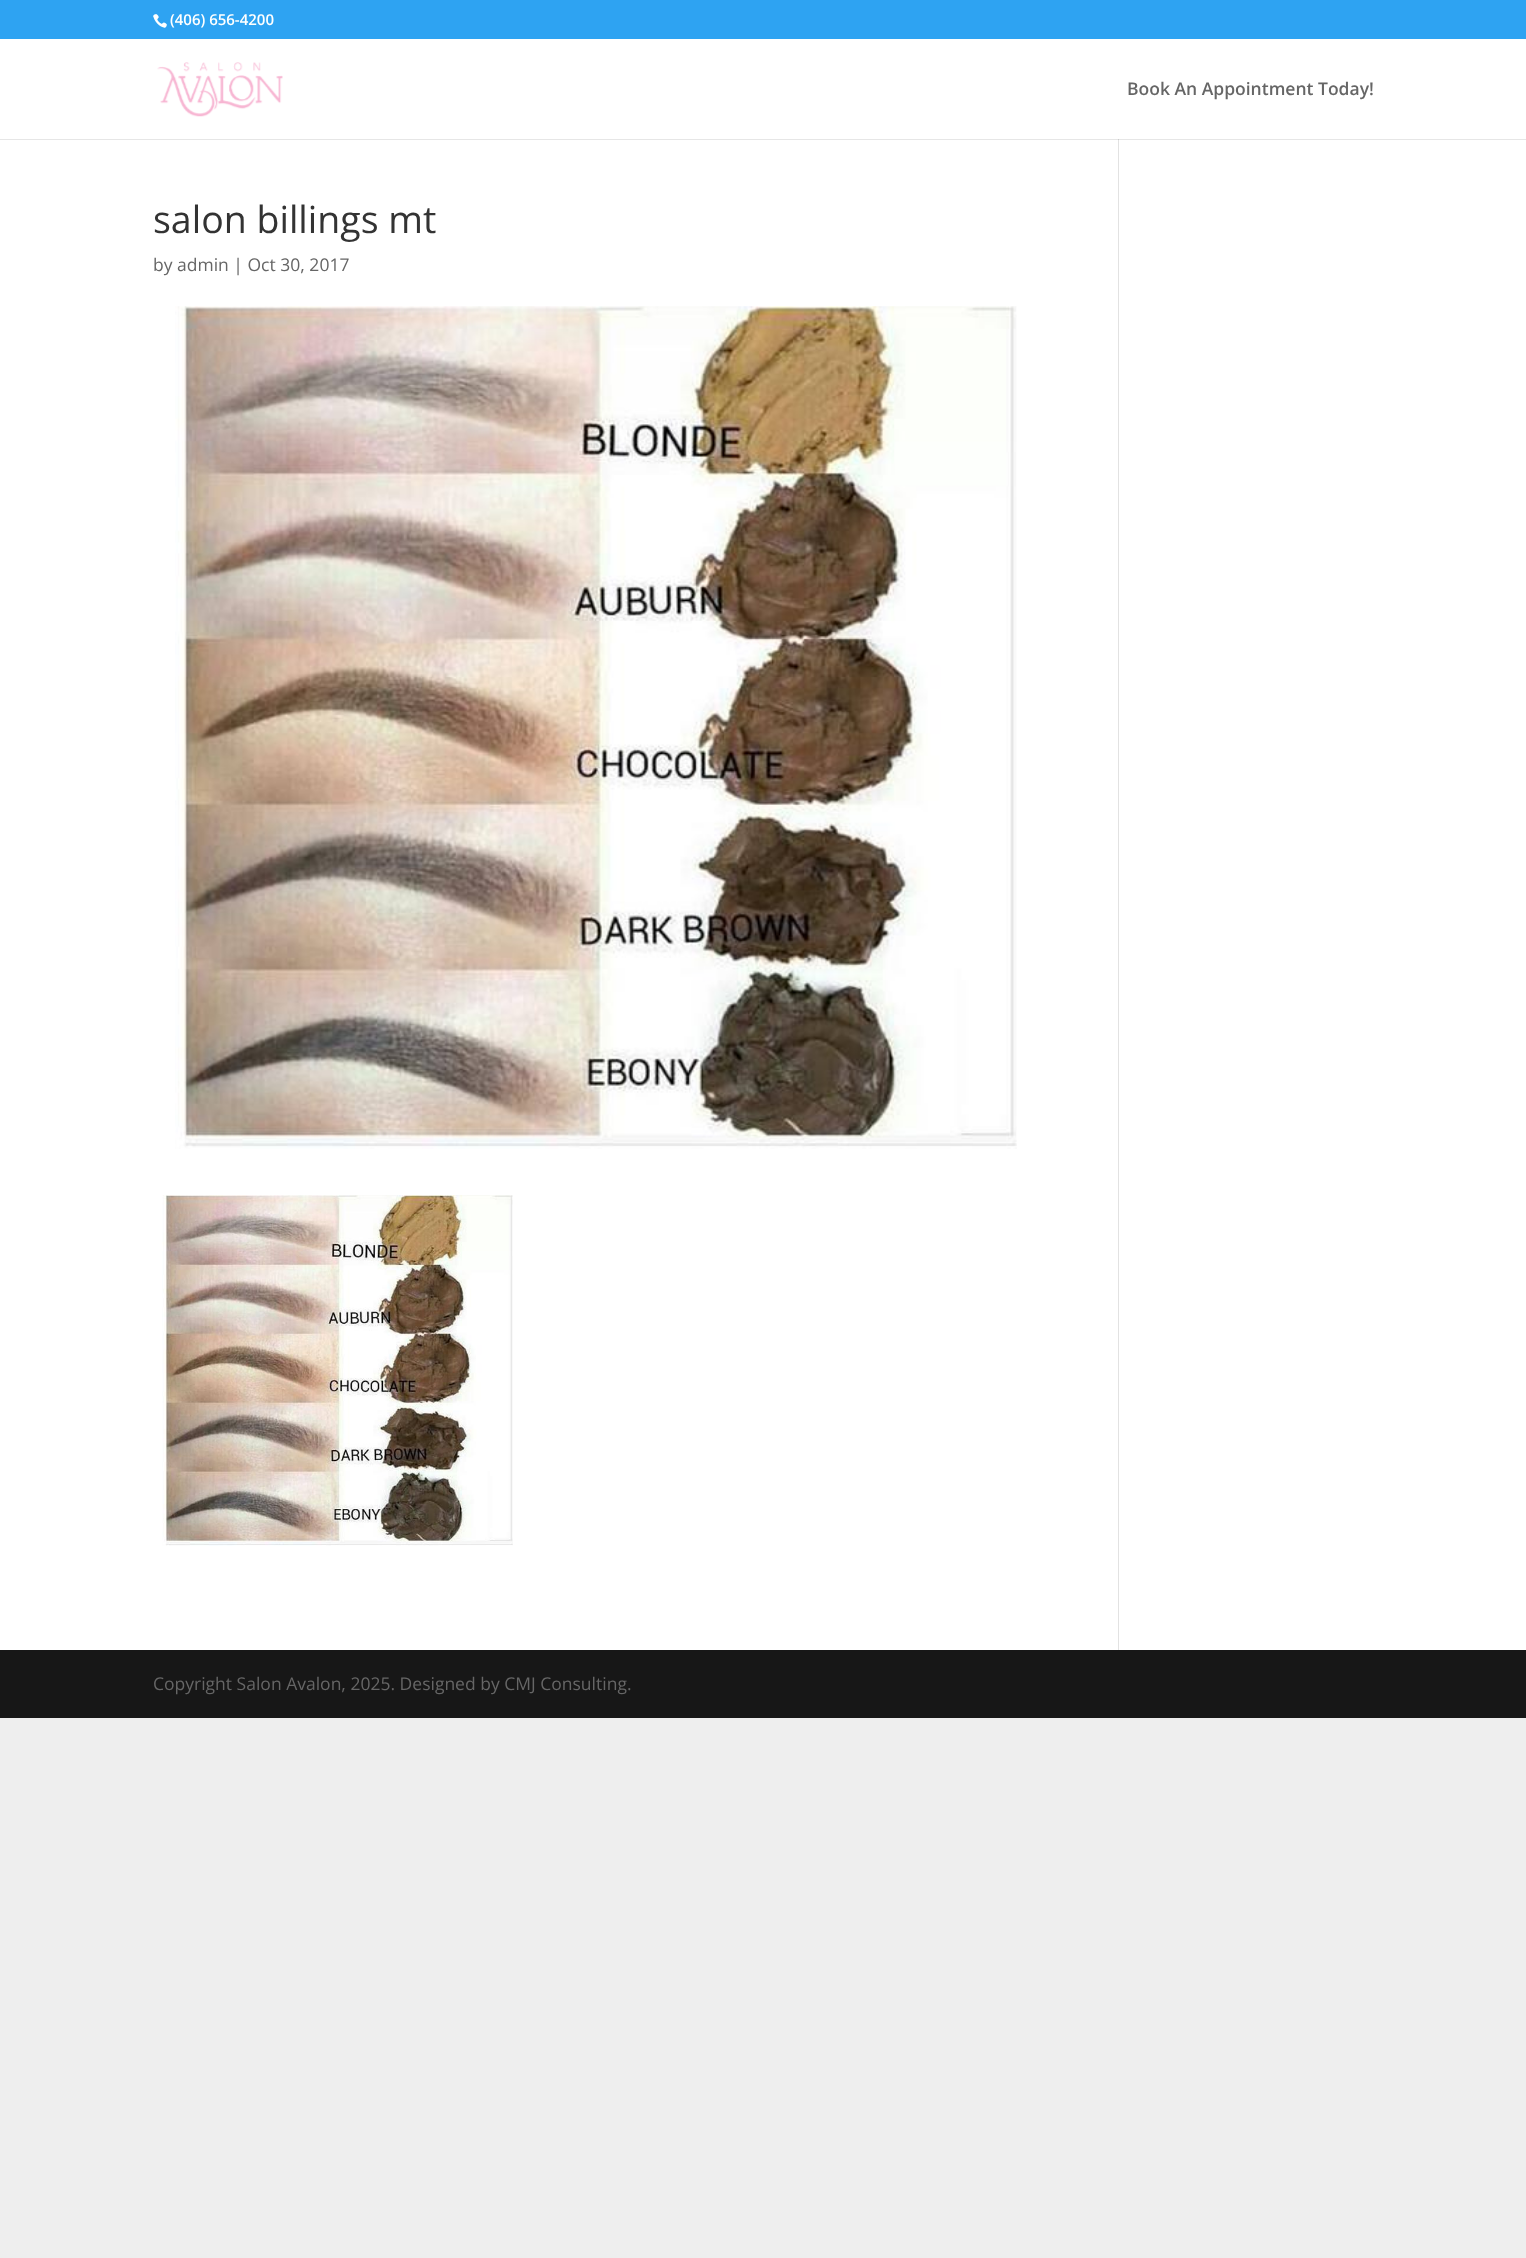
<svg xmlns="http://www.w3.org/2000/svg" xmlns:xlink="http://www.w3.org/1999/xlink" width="1526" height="2258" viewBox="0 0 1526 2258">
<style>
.cls-1{font:600 15px Open Sans;fill:#ffffff}
.cls-2{font:600 17.5px Open Sans;fill:#666666}
.cls-3{font:37.5px Open Sans;fill:#333333}
.cls-4{font:17.5px Open Sans;fill:#666666}
</style>
<rect width="100%" height="100%" fill="#eeeeee"/>
<rect fill="#2ea3f2" x="0" y="0" width="1526" height="39"/>
<image xlink:href="image0.png" x="153" y="14" width="14" height="14"/>
<rect fill="#ffffff" x="0" y="39" width="1526" height="100"/>
<image xlink:href="image1.png" x="157" y="62" width="126" height="55"/>
<rect fill="#ffffff" x="0" y="140" width="1526" height="1510"/>
<rect fill="#e6e6e6" x="0" y="139" width="1526" height="1"/>
<image xlink:href="image2.png" x="175" y="306" width="842" height="843"/>
<image xlink:href="image3.png" x="162" y="1195" width="351" height="351"/>
<rect fill="#e2e2e2" x="1118" y="140" width="1" height="1510"/>
<rect fill="#cbcbcb" x="1118" y="139" width="1" height="1"/>
<rect fill="#171717" x="0" y="1650" width="1526" height="68"/>
<text class="cls-1" x="170" y="25">(406) 656-4200</text>
<text class="cls-2" x="1127" y="95">Book An Appointment Today!</text>
<text class="cls-3" x="153" y="233">salon billings mt</text>
<text class="cls-4" x="153" y="271">by admin | Oct 30, 2017</text>
<text class="cls-4" x="153" y="1690">Copyright Salon Avalon, 2025. Designed by CMJ Consulting.</text>
</svg>
